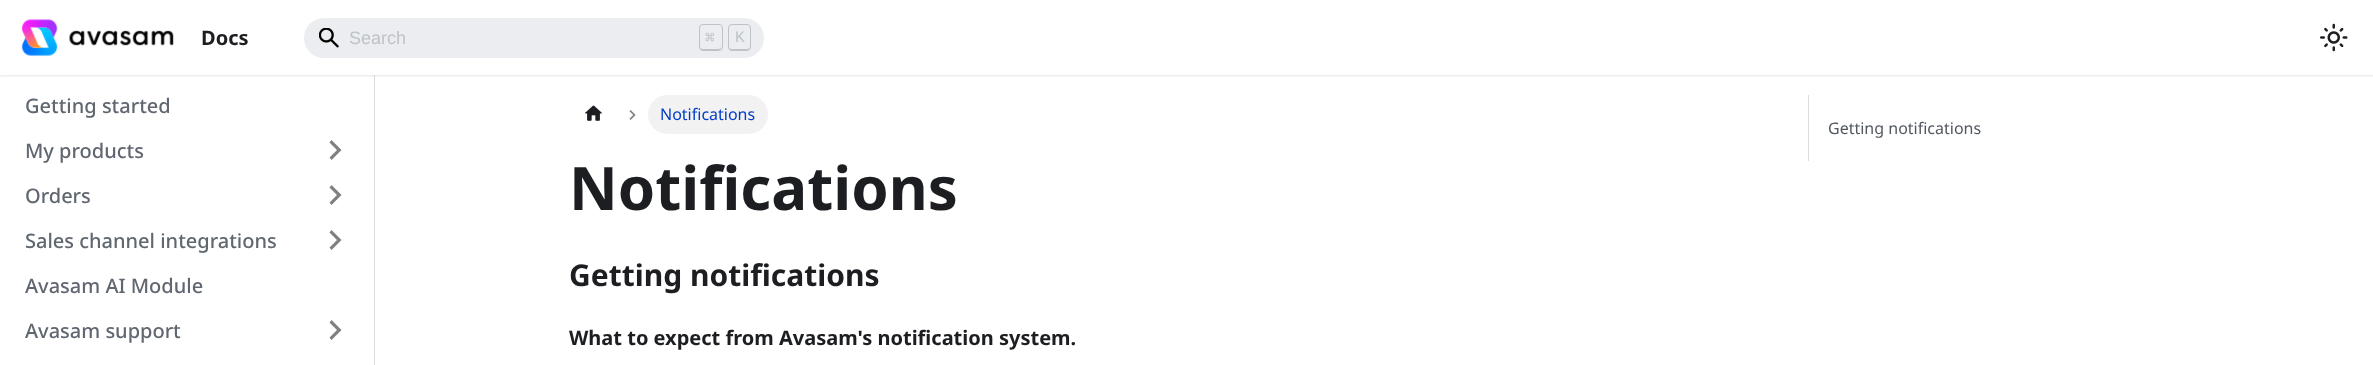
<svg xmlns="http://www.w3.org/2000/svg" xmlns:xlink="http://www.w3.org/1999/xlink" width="2373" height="365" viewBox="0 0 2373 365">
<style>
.cls-1{font:bold 20px Noto Sans;fill:#1c1e21}
.cls-2{font:18px Liberation Sans;fill:#bec3c9}
.cls-3{font:16px DejaVu Sans Mono;fill:#bec3c9}
.cls-4{font:16px Liberation Mono;fill:#bec3c9}
.cls-5{font:500 20px Noto Sans;fill:#606770}
.cls-6{font:16px Noto Sans;fill:#003cc7}
.cls-7{font:bold 60px Noto Sans;fill:#1c1e21}
.cls-8{font:bold 30px Noto Sans;fill:#1c1e21}
.cls-9{font:16px Noto Sans;fill:#525860}
</style>
<rect width="100%" height="100%" fill="#ffffff"/>
<rect fill="#dadde1" x="374" y="75" width="1" height="290"/>
<rect fill="#000000" fill-opacity="0.1" filter="blur(1px)" x="0" y="1" width="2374" height="75"/>
<rect fill="#ffffff" x="0" y="0" width="2373" height="75"/>
<image xlink:href="image0.png" x="21" y="19" width="153" height="38"/>
<rect fill="#ebedf0" x="304" y="18" width="460" height="40" rx="20"/>
<image xlink:href="image1.png" x="319" y="28" width="20" height="20"/>
<path fill="#bec3c9" d="M700 46C700 50 701.5 50 705 50H716C719.5 50 721 50 721 46C721 48 720 49 718 49H703C701 49 700 48 700 46Z"/>
<rect fill="none" stroke="#bec3c9" x="699.5" y="24.5" width="23" height="26" rx="3.5"/>
<path fill="#bec3c9" d="M729 46C729 50 730.5 50 734 50H745C748.5 50 750 50 750 46C750 48 749 49 747 49H732C730 49 729 48 729 46Z"/>
<rect fill="none" stroke="#bec3c9" x="728.5" y="24.5" width="22" height="26" rx="3.5"/>
<image xlink:href="image2.png" x="2320" y="23" width="28" height="29"/>
<path fill="#808080" d="M329.5 142.5L337 150L329.5 157.5L331.5 160L341.5 150L331.5 140Z"/>
<path fill="#808080" d="M329.5 187.5L337 195L329.5 202.5L331.5 205L341.5 195L331.5 185Z"/>
<path fill="#808080" d="M329.5 232.5L337 240L329.5 247.5L331.5 250L341.5 240L331.5 230Z"/>
<path fill="#808080" d="M329.5 322.5L337 330L329.5 337.5L331.5 340L341.5 330L331.5 320Z"/>
<image xlink:href="image3.png" x="585" y="105" width="17" height="16"/>
<image xlink:href="image4.png" x="629" y="110" width="7" height="10"/>
<rect fill="#f2f2f2" x="648" y="95" width="120" height="39" rx="19.5"/>
<rect fill="#dadde1" x="1808" y="95" width="1" height="66"/>
<text class="cls-1" x="201" y="45">Docs</text>
<text class="cls-2" x="349" y="44">Search</text>
<text class="cls-3" x="705" y="43">⌘</text>
<text class="cls-4" x="735" y="42">K</text>
<text class="cls-5" x="25" y="113">Getting started</text>
<text class="cls-5" x="25" y="158">My products</text>
<text class="cls-5" x="25" y="203">Orders</text>
<text class="cls-5" x="25" y="248">Sales channel integrations</text>
<text class="cls-5" x="25" y="293">Avasam AI Module</text>
<text class="cls-5" x="25" y="338">Avasam support</text>
<text class="cls-6" x="660" y="120">Notifications</text>
<text class="cls-7" x="569" y="210">Notifications</text>
<text class="cls-8" x="569" y="286">Getting notifications</text>
<text class="cls-1" x="569" y="345">What to expect from Avasam's notification system.</text>
<text class="cls-9" x="1828" y="134">Getting notifications</text>
</svg>
